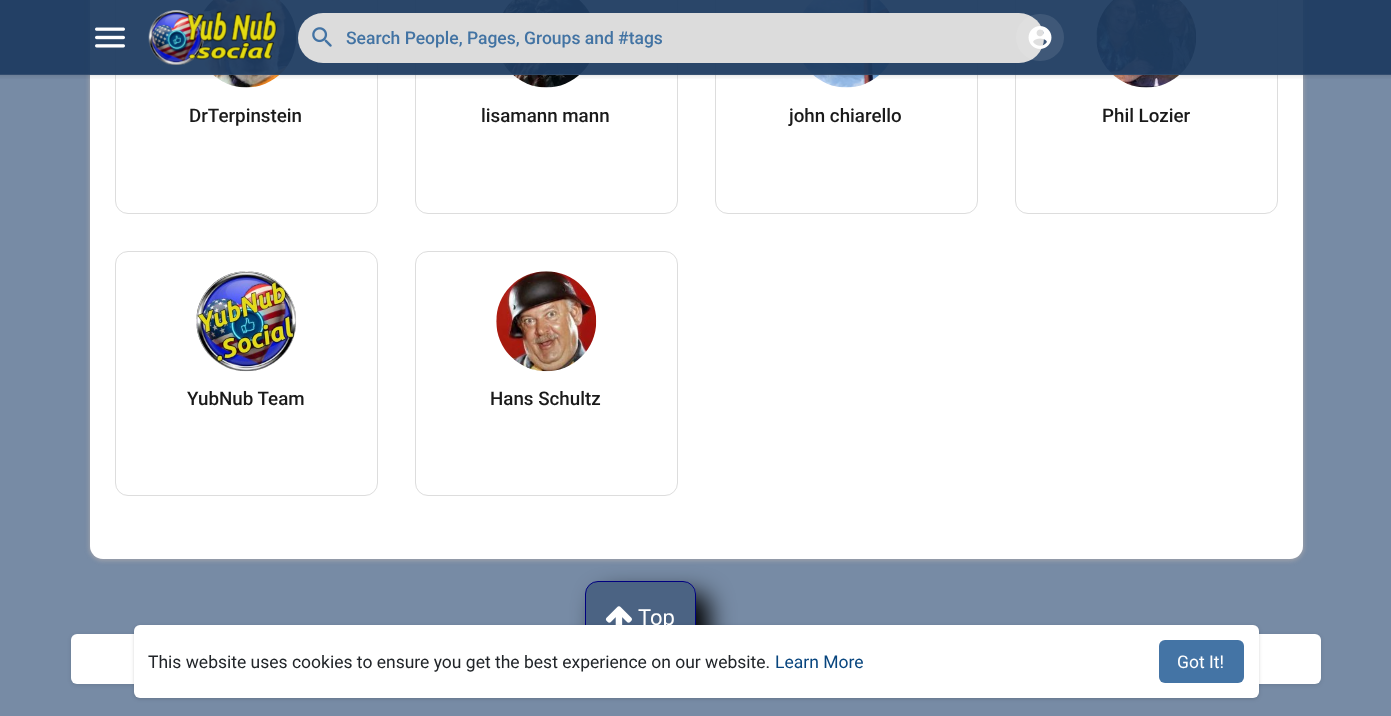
<svg xmlns="http://www.w3.org/2000/svg" xmlns:xlink="http://www.w3.org/1999/xlink" width="1391" height="716" viewBox="0 0 1391 716">
<style>
.cls-1{font:500 17.5px Roboto;fill:#4273a3}
.cls-2{font:500 18.75px Roboto;fill:#1a1a1a}
.cls-3{font:22px Roboto;fill:#ffffff}
.cls-4{font:17.5px Roboto;fill:#212529}
.cls-5{font:17.5px Roboto;fill:#08457e}
.cls-6{font:17.5px Roboto;fill:#ffffff}
</style>
<defs>
<clipPath id="clip1"><path d="M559 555H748V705H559ZM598 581H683C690 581 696 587 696 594V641C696 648 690 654 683 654H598C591 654 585 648 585 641V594C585 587 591 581 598 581Z" clip-rule="evenodd"/></clipPath>
</defs>
<rect width="100%" height="100%" fill="#778ba5"/>
<rect fill="#b3aeae" fill-opacity="0.61" filter="blur(2px)" x="89" y="-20" width="1215" height="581" rx="14"/>
<rect fill="#ffffff" x="90" y="-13" width="1213" height="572" rx="13"/>
<rect fill="none" stroke="#dddddd" x="115.5" y="-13.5" width="262" height="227" rx="12.5"/>
<image xlink:href="image5.png" x="198" y="0" width="99" height="88"/>
<rect fill="none" stroke="#dddddd" x="415.5" y="-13.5" width="262" height="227" rx="12.5"/>
<image xlink:href="image6.png" x="502" y="0" width="88" height="88"/>
<rect fill="none" stroke="#dddddd" x="715.5" y="-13.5" width="262" height="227" rx="12.5"/>
<image xlink:href="image7.png" x="802" y="0" width="88" height="88"/>
<rect fill="none" stroke="#dddddd" x="1015.5" y="-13.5" width="262" height="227" rx="12.5"/>
<image xlink:href="image8.png" x="1096" y="0" width="101" height="88"/>
<rect fill="#1f3c61" fill-opacity="0.95" x="0" y="0" width="1391" height="75"/>
<image xlink:href="image0.png" x="95" y="27" width="30" height="21"/>
<image xlink:href="image1.png" x="148" y="10" width="129" height="55"/>
<rect fill="#dcdcdc" x="298" y="13" width="746" height="50" rx="25"/>
<image xlink:href="image2.png" x="312" y="27" width="20" height="20"/>
<image xlink:href="image3.png" x="0" y="74" width="1391" height="5"/>
<rect fill="#ffffff" fill-opacity="0.1" x="1016" y="14" width="48" height="47" rx="23.5"/>
<image xlink:href="image4.png" x="1028" y="26" width="24" height="23"/>
<rect fill="none" stroke="#dddddd" x="115.5" y="251.5" width="262" height="244" rx="12.5"/>
<image xlink:href="image9.png" x="196" y="271" width="101" height="101"/>
<rect fill="none" stroke="#dddddd" x="415.5" y="251.5" width="262" height="244" rx="12.5"/>
<image xlink:href="image10.png" x="496" y="271" width="101" height="101"/>
<rect fill="#000000" fill-opacity="0.1" filter="blur(2px)" x="71" y="635" width="1250" height="50" rx="6"/>
<rect fill="#ffffff" x="71" y="634" width="1250" height="50" rx="6"/>
<g clip-path="url(#clip1)">
<rect fill="#000000" filter="blur(12.5px)" x="598" y="594" width="111" height="72" rx="13"/>
</g>
<rect fill="#1f3c61" fill-opacity="0.5" stroke="#000080" x="585.5" y="581.5" width="110" height="72" rx="12.5"/>
<image xlink:href="image11.png" x="605" y="606" width="27" height="19"/>
<rect fill="#000000" fill-opacity="0.06" filter="blur(1px)" x="134" y="626" width="1125" height="73" rx="6"/>
<rect fill="#000000" fill-opacity="0.1" filter="blur(2px)" x="134" y="626" width="1125" height="73" rx="6"/>
<rect fill="#ffffff" x="134" y="625" width="1125" height="73" rx="6"/>
<rect fill="#4474a5" x="1159" y="640" width="85" height="43" rx="6"/>
<text class="cls-1" x="346" y="44">Search People, Pages, Groups and #tags</text>
<text class="cls-2" x="189" y="122">DrTerpinstein</text>
<text class="cls-2" x="481" y="122">lisamann mann</text>
<text class="cls-2" x="789" y="122">john chiarello</text>
<text class="cls-2" x="1102" y="122">Phil Lozier</text>
<text class="cls-2" x="187" y="405">YubNub Team</text>
<text class="cls-2" x="490" y="405">Hans Schultz</text>
<text class="cls-3" x="638" y="625">Top</text>
<text class="cls-4" x="148" y="668">This website uses cookies to ensure you get the best experience on our website.</text>
<text class="cls-5" x="775" y="668">Learn More</text>
<text class="cls-6" x="1177" y="668">Got It!</text>
</svg>
